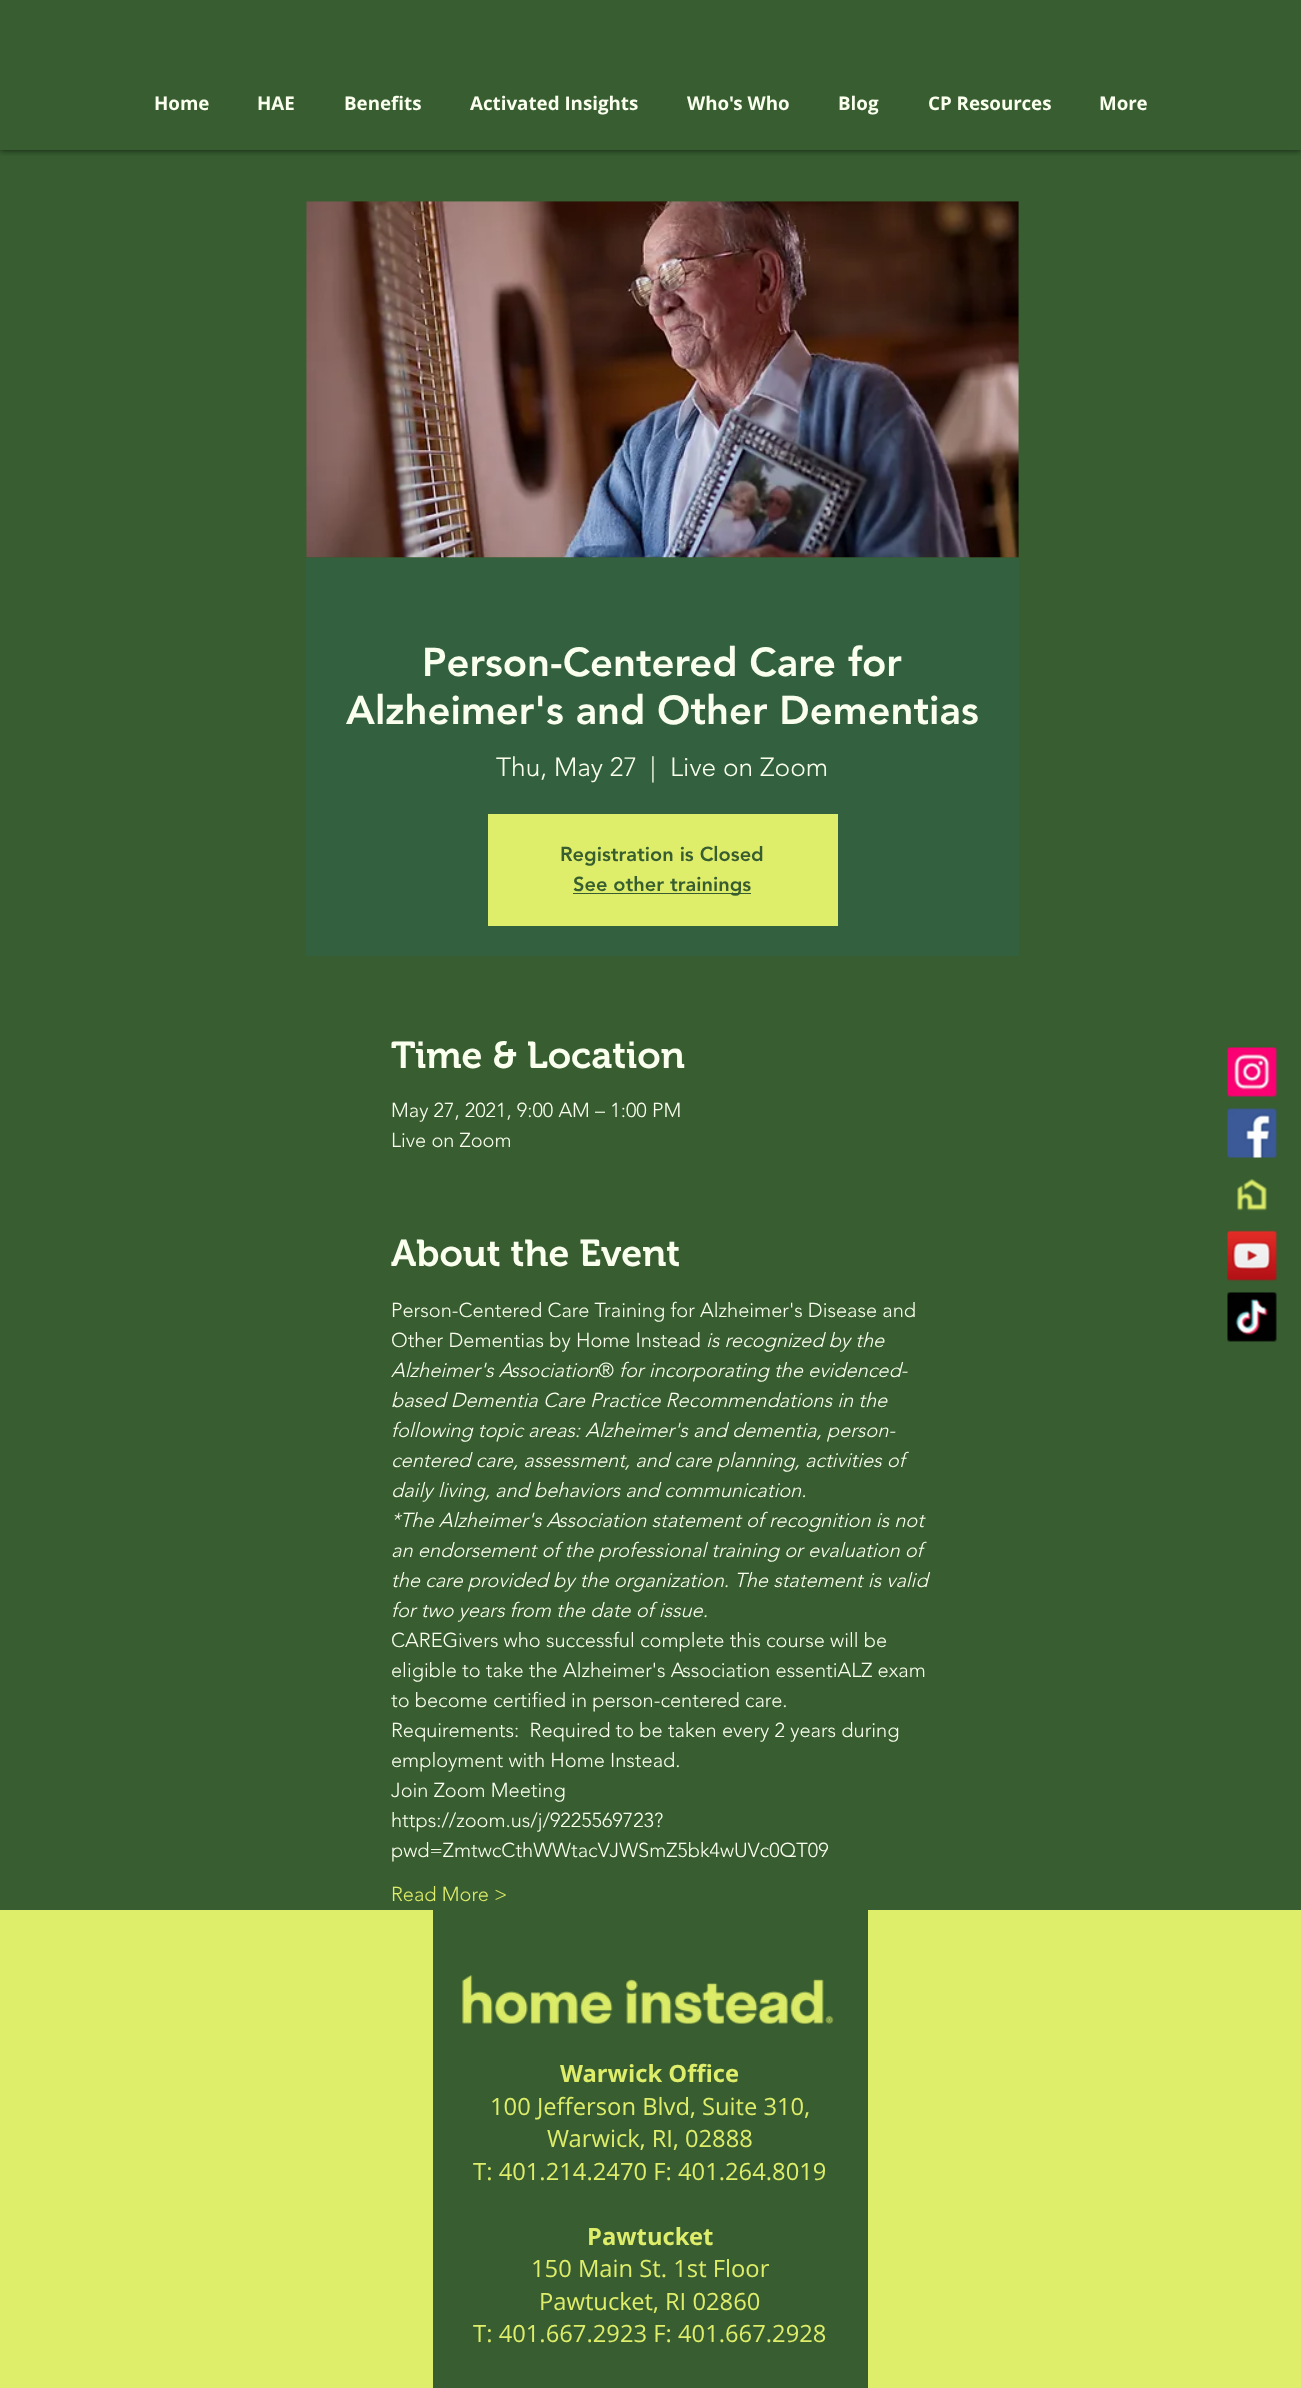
<svg xmlns="http://www.w3.org/2000/svg" xmlns:xlink="http://www.w3.org/1999/xlink" width="1301" height="2388" viewBox="0 0 1301 2388">
<style>
.cls-1{font:bold 18.75px Open Sans;fill:#faffee}
.cls-2{font:900 40px 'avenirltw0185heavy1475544';fill:#faffee}
.cls-3{font:300 26.25px 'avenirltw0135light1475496';fill:#faffee}
.cls-4{font:900 20px 'avenirltw0185heavy1475544';fill:#375d30}
.cls-5{font:600 37.5px 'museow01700';fill:#faffee}
.cls-6{font:300 20px 'avenirltw0135light1475496';fill:#faffee}
.cls-7{font:italic 300 20px 'avenirltw0135light1475496';fill:#faffee}
.cls-8{font:300 20px 'avenirltw0135light1475496';fill:#deed6a}
.cls-9{font:bold 23.75px Open Sans;fill:#deed6a}
.cls-10{font:23.75px Open Sans;fill:#deed6a}
</style>
<defs>
<clipPath id="clip1"><rect x="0" y="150" width="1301" height="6"/></clipPath>
</defs>
<rect width="100%" height="100%" fill="#375d30"/>
<g clip-path="url(#clip1)">
<rect fill="#000000" fill-opacity="0.7" filter="blur(3px)" x="0" y="0" width="1301" height="150"/>
</g>
<rect fill="#33613f" x="306" y="558" width="713" height="398"/>
<image xlink:href="image0.png" x="306" y="201" width="713" height="357"/>
<rect fill="#deed6a" x="488" y="814" width="350" height="112"/>
<rect fill="#375d30" x="573" y="893" width="178" height="1"/>
<image xlink:href="image1.png" x="1227" y="1047" width="50" height="50"/>
<image xlink:href="image2.png" x="1227" y="1108" width="50" height="50"/>
<image xlink:href="image3.png" x="1237" y="1178" width="30" height="33"/>
<image xlink:href="image4.png" x="1227" y="1230" width="50" height="51"/>
<image xlink:href="image5.png" x="1227" y="1292" width="50" height="50"/>
<rect fill="#deed6a" x="0" y="1910" width="433" height="478"/>
<image xlink:href="image6.png" x="462" y="1975" width="372" height="49"/>
<rect fill="#deed6a" x="868" y="1910" width="433" height="478"/>
<text class="cls-1" x="154" y="110">Home</text>
<text class="cls-1" x="257" y="110">HAE</text>
<text class="cls-1" x="344" y="110">Benefits</text>
<text class="cls-1" x="470" y="110">Activated Insights</text>
<text class="cls-1" x="687" y="110">Who's Who</text>
<text class="cls-1" x="838" y="110">Blog</text>
<text class="cls-1" x="928" y="110">CP Resources</text>
<text class="cls-1" x="1099" y="110">More</text>
<text class="cls-2" x="422" y="676">Person-Centered Care for</text>
<text class="cls-2" x="346" y="724">Alzheimer's and Other Dementias</text>
<text class="cls-3" x="496" y="776">Thu, May 27</text>
<text class="cls-3" x="650" y="776">|</text>
<text class="cls-3" x="670" y="776">Live on Zoom</text>
<text class="cls-4" x="560" y="861">Registration is Closed</text>
<text class="cls-4" x="573" y="891">See other trainings</text>
<text class="cls-5" x="391" y="1068">Time &amp; Location</text>
<text class="cls-6"><tspan x="391" y="1117">May 27, 2021, 9:00 AM – 1:00 PM</tspan><tspan x="391" y="1147">Live on Zoom</tspan></text>
<text class="cls-5" x="391" y="1266">About the Event</text>
<text class="cls-6"><tspan x="391" y="1317">Person-Centered Care Training for Alzheimer's Disease and</tspan><tspan x="391" y="1347">Other Dementias by Home Instead</tspan></text>
<text class="cls-7" x="706" y="1347">is recognized by the</text>
<text class="cls-7" x="391" y="1377">Alzheimer's Association</text>
<text class="cls-6" x="598" y="1377">®</text>
<text class="cls-7" x="619" y="1377">for incorporating the evidenced-</text>
<text class="cls-7"><tspan x="391" y="1407">based Dementia Care Practice Recommendations in the</tspan><tspan x="391" y="1437">following topic areas: Alzheimer's and dementia, person-</tspan><tspan x="391" y="1467">centered care, assessment, and care planning, activities of</tspan><tspan x="391" y="1497">daily living, and behaviors and communication.</tspan><tspan x="391" y="1527">*The Alzheimer's Association statement of recognition is not</tspan><tspan x="391" y="1557">an endorsement of the professional training or evaluation of</tspan><tspan x="391" y="1587">the care provided by the organization. The statement is valid</tspan><tspan x="391" y="1617">for two years from the date of issue.</tspan></text>
<text class="cls-6" xml:space="preserve"><tspan x="391" y="1647">CAREGivers who successful complete this course will be</tspan><tspan x="391" y="1677">eligible to take the Alzheimer's Association essentiALZ exam</tspan><tspan x="391" y="1707">to become certified in person-centered care.</tspan><tspan x="391" y="1737">Requirements:  Required to be taken every 2 years during</tspan><tspan x="391" y="1767">employment with Home Instead.</tspan><tspan x="391" y="1797">Join Zoom Meeting</tspan><tspan x="391" y="1827">https://zoom.us/j/9225569723?</tspan><tspan x="391" y="1857">pwd=ZmtwcCthWWtacVJWSmZ5bk4wUVc0QT09</tspan></text>
<text class="cls-8" x="391" y="1901">Read More &gt;</text>
<text class="cls-9" x="560" y="2082">Warwick Office</text>
<text class="cls-10" x="490" y="2115">100 Jefferson Blvd, Suite 310,</text>
<text class="cls-10" x="547" y="2147">Warwick, RI, 02888</text>
<text class="cls-10" x="473" y="2180">T: 401.214.2470 F: 401.264.8019</text>
<text class="cls-9" x="587" y="2245">Pawtucket</text>
<text class="cls-10" x="531" y="2277">150 Main St. 1st Floor</text>
<text class="cls-10" x="539" y="2310">Pawtucket, RI 02860</text>
<text class="cls-10" x="473" y="2342">T: 401.667.2923 F: 401.667.2928</text>
</svg>
